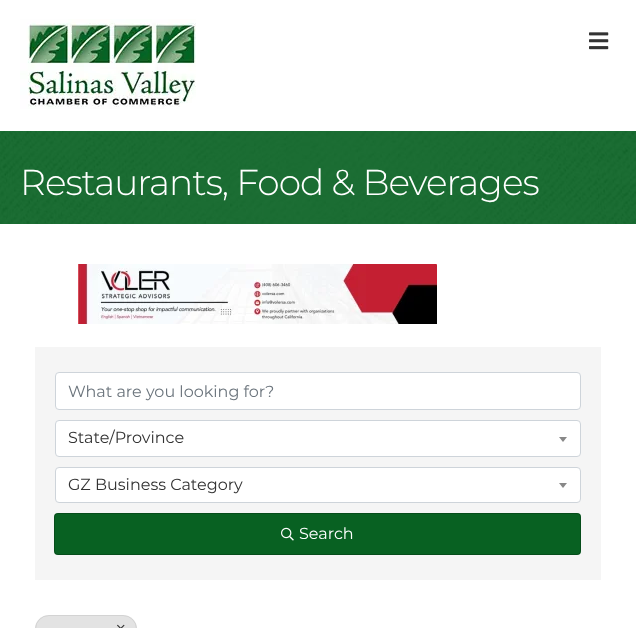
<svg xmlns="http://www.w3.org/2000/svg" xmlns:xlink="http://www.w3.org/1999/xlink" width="636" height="628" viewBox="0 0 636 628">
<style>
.cls-1{font:300 36px Montserrat;letter-spacing:-1px;fill:#ffffff}
.cls-2{font:16px Montserrat;fill:#6c757d}
.cls-3{font:16px Montserrat;fill:#333333}
.cls-4{font:16px Montserrat;fill:#ffffff}
</style>
<rect width="100%" height="100%" fill="#ffffff"/>
<image xlink:href="image0.png" x="20" y="19" width="176" height="90"/>
<image xlink:href="image1.png" x="589" y="32" width="20" height="18"/>
<image xlink:href="image2.png" x="0" y="131" width="636" height="93"/>
<image xlink:href="image3.png" x="78" y="264" width="359" height="60"/>
<rect fill="#f5f5f5" x="35" y="347" width="566" height="233"/>
<rect fill="#ffffff" stroke="#ced4da" x="55.5" y="372.5" width="525" height="37" rx="3.5"/>
<rect fill="#ffffff" stroke="#ced4da" x="55.5" y="420.5" width="525" height="36" rx="3.5"/>
<path fill="#888888" d="M559 437H567L563 442Z"/>
<rect fill="#ffffff" stroke="#ced4da" x="55.5" y="467.5" width="525" height="35" rx="3.5"/>
<path fill="#888888" d="M559 483H567L563 488Z"/>
<rect fill="#086122" x="54" y="513" width="527" height="42" rx="4"/>
<rect fill="none" stroke="#000000" stroke-opacity="0.2" x="54.5" y="513.5" width="526" height="41" rx="3.5"/>
<image xlink:href="image4.png" x="281" y="527" width="13" height="14"/>
<rect fill="#e3e3e3" x="35" y="615" width="102" height="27" rx="14"/>
<rect fill="none" stroke="#000000" stroke-opacity="0.07" x="35.5" y="615.5" width="101" height="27" rx="13.5"/>
<image xlink:href="image5.png" x="117" y="624" width="8" height="4"/>
<text class="cls-1" x="20" y="195">Restaurants, Food &amp; Beverages</text>
<text class="cls-2" x="68" y="397">What are you looking for?</text>
<text class="cls-3" x="68" y="443">State/Province</text>
<text class="cls-3" x="68" y="490">GZ Business Category</text>
<text class="cls-4" x="299" y="539">Search</text>
</svg>
